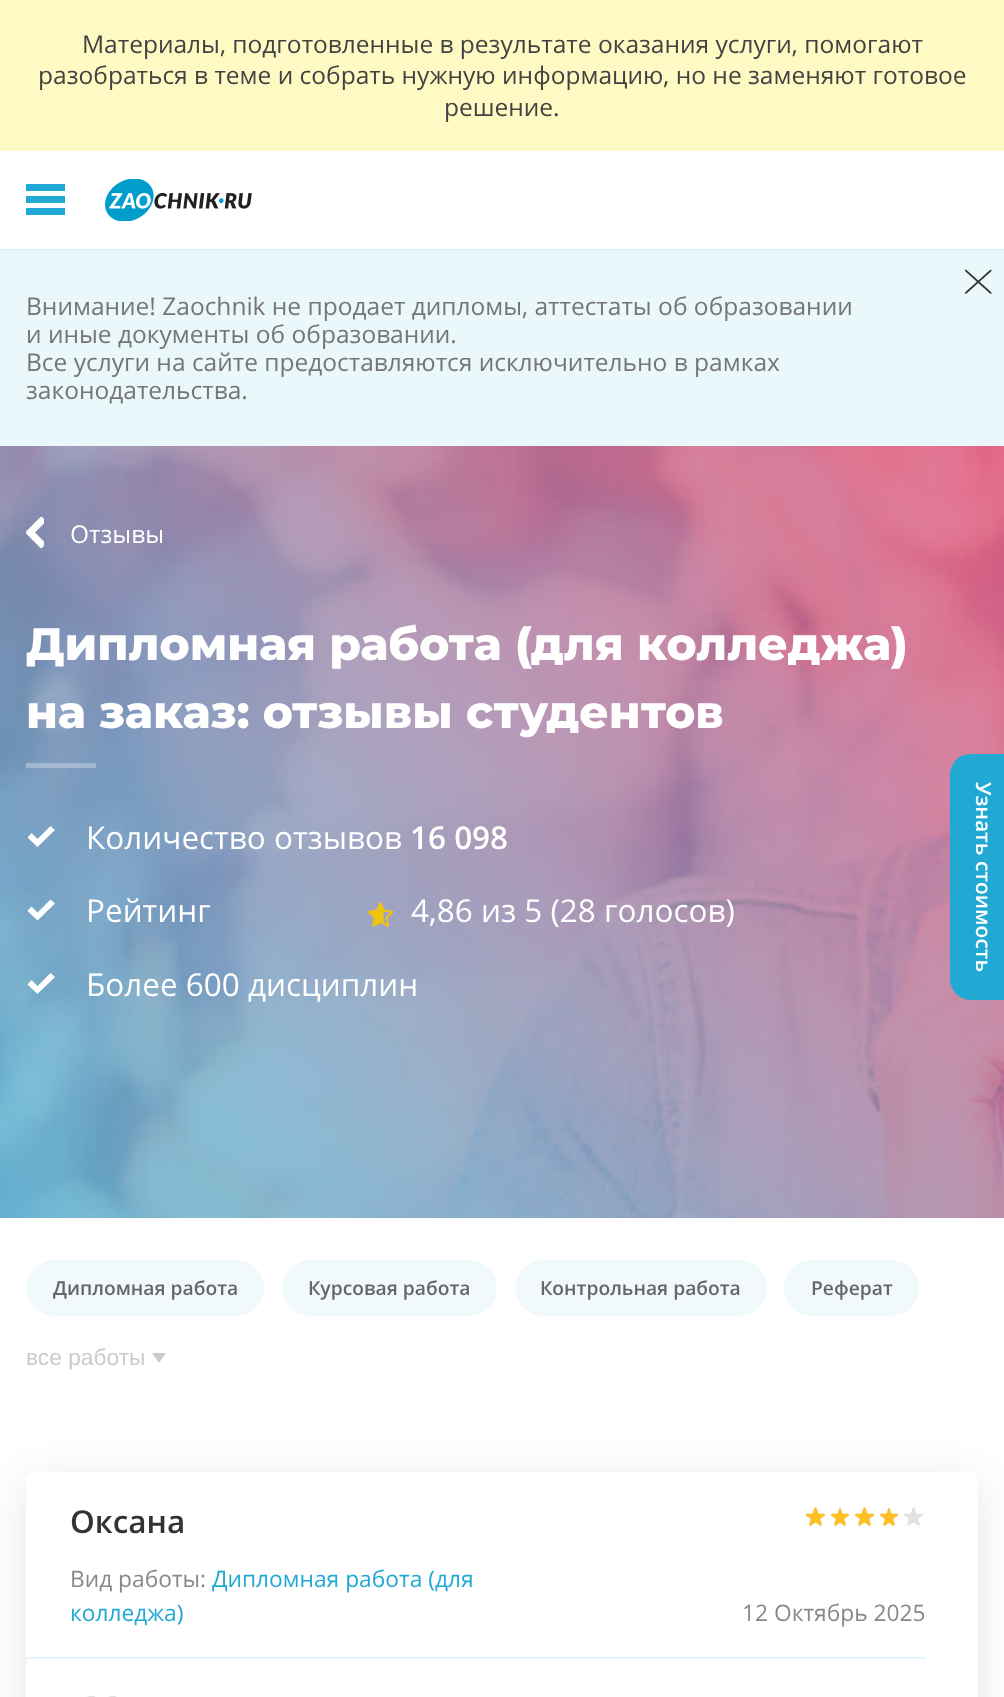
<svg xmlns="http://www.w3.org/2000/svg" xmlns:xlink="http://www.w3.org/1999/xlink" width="1004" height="1697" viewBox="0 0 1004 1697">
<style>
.cls-1{font:24.5px Open Sans;fill:#424242}
.cls-2{font:24.5px Open Sans;fill:#757575}
.cls-3{font:24.5px Open Sans;fill:#ffffff}
.cls-4{font:800 45.5px Montserrat;fill:#ffffff}
.cls-5{font:31.5px Open Sans;fill:#ffffff}
.cls-6{font:600 31.5px Open Sans;fill:#ffffff}
.cls-7{font:600 19.25px Open Sans;fill:#666666}
.cls-8{font:22.75px Liberation Sans;fill:#cbcbcb}
.cls-9{font:600 31.5px Open Sans;fill:#333333}
.cls-10{font:22.75px Open Sans;fill:#888888}
.cls-11{font:22.75px Open Sans;fill:#22a9d3}
.cls-12{font:600 21px Open Sans;fill:#ffffff}
</style>
<rect width="100%" height="100%" fill="#ffffff"/>
<rect fill="#def2f8" x="0" y="249" width="1004" height="2"/>
<rect fill="#fff9c4" x="0" y="0" width="1004" height="151"/>
<rect fill="#22a9d3" x="26" y="184" width="39" height="31"/>
<rect fill="#ffffff" x="26" y="191" width="39" height="5"/>
<rect fill="#ffffff" x="26" y="203" width="39" height="5"/>
<image xlink:href="image0.png" x="105" y="179" width="147" height="42"/>
<rect fill="#eaf7fb" x="0" y="251" width="1004" height="195"/>
<path fill="#333333" d="M991.5 270C991.5 270.5 991.5 271 991 271.5L966.5 293.5C966 294 965.5 294 965 293.5C965 293 965 292.5 965.5 292L990 270C990.5 269.5 991 269.5 991.5 270Z"/>
<path fill="#333333" d="M965 270C965.5 269.5 966 269.5 966.5 270L991 292C991.5 292.5 991.5 293 991.5 293.5C991 294 990.5 294 990 293.5L965.5 271.5C965 271 965 270.5 965 270Z"/>
<image xlink:href="image1.png" x="0" y="446" width="1004" height="772"/>
<image xlink:href="image2.png" x="26" y="516" width="18" height="33"/>
<rect fill="#ffffff" fill-opacity="0.3" x="26" y="763" width="70" height="5"/>
<path fill="#ffffff" fill-rule="evenodd" d="M50.5 826L37.5 839L31.5 833L27.5 837.5L37.5 847L55 830Z"/>
<path fill="#ffffff" fill-rule="evenodd" d="M50.5 899.5L37.5 912.5L31.5 906.5L27.5 911L37.5 920.5L55 903.5Z"/>
<image xlink:href="image3.png" x="368" y="901" width="26" height="26"/>
<path fill="#ffffff" fill-rule="evenodd" d="M50.5 973L37.5 986L31.5 980L27.5 984.5L37.5 994L55 977Z"/>
<rect fill="#f1f9fd" x="26" y="1260" width="238" height="56" rx="28"/>
<rect fill="#f1f9fd" x="282" y="1260" width="215" height="56" rx="28"/>
<rect fill="#f1f9fd" x="515" y="1260" width="252" height="56" rx="28"/>
<rect fill="#f1f9fd" x="784" y="1260" width="135" height="56" rx="28"/>
<path fill="#cbcbcb" d="M152 1353H166L159 1363Z"/>
<rect fill="#000000" fill-opacity="0.1" filter="blur(22px)" x="26" y="1481" width="952" height="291" rx="9"/>
<rect fill="#ffffff" x="26" y="1472" width="952" height="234" rx="9"/>
<rect fill="#e3f4fa" x="26" y="1657" width="900" height="2"/>
<image xlink:href="image4.png" x="806" y="1507" width="117" height="19"/>
<image xlink:href="image5.png" x="806" y="1507" width="92" height="19"/>
<image xlink:href="image6.png" x="87" y="1696" width="30" height="1"/>
<path fill="#22a9d3" d="M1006 754V1000H971C959 1000 950 990 950 979V775C950 763 959 754 971 754Z"/>
<text class="cls-1" x="82" y="53">Материалы, подготовленные в результате оказания услуги, помогают</text>
<text class="cls-1" x="38" y="84">разобраться в теме и собрать нужную информацию, но не заменяют готовое</text>
<text class="cls-1" x="444" y="116">решение.</text>
<text class="cls-2"><tspan x="26" y="315">Внимание! Zaochnik не продает дипломы, аттестаты об образовании</tspan><tspan x="26" y="343">и иные документы об образовании.</tspan><tspan x="26" y="371">Все услуги на сайте предоставляются исключительно в рамках</tspan><tspan x="26" y="399">законодательства.</tspan></text>
<text class="cls-3" x="70" y="543">Отзывы</text>
<text class="cls-4"><tspan x="26" y="660">Дипломная работа (для колледжа)</tspan><tspan x="26" y="728">на заказ: отзывы студентов</tspan></text>
<text class="cls-5" x="86" y="849">Количество отзывов</text>
<text class="cls-6" x="410" y="849">16 098</text>
<text class="cls-5" x="86" y="922">Рейтинг</text>
<text class="cls-5" x="411" y="922">4,86 из 5 (28 голосов)</text>
<text class="cls-5" x="86" y="996">Более 600 дисциплин</text>
<text class="cls-7" x="53" y="1295">Дипломная работа</text>
<text class="cls-7" x="308" y="1295">Курсовая работа</text>
<text class="cls-7" x="540" y="1295">Контрольная работа</text>
<text class="cls-7" x="811" y="1295">Реферат</text>
<text class="cls-8" x="26" y="1365">все работы</text>
<text class="cls-9" x="70" y="1533">Оксана</text>
<text class="cls-10" x="70" y="1587">Вид работы:</text>
<text class="cls-11" x="212" y="1587">Дипломная работа (для</text>
<text class="cls-11" x="70" y="1621">колледжа)</text>
<text class="cls-10" x="742" y="1621">12 Октябрь 2025</text>
<text class="cls-12" x="976" y="782" transform="rotate(90 976 782)">Узнать стоимость</text>
</svg>
